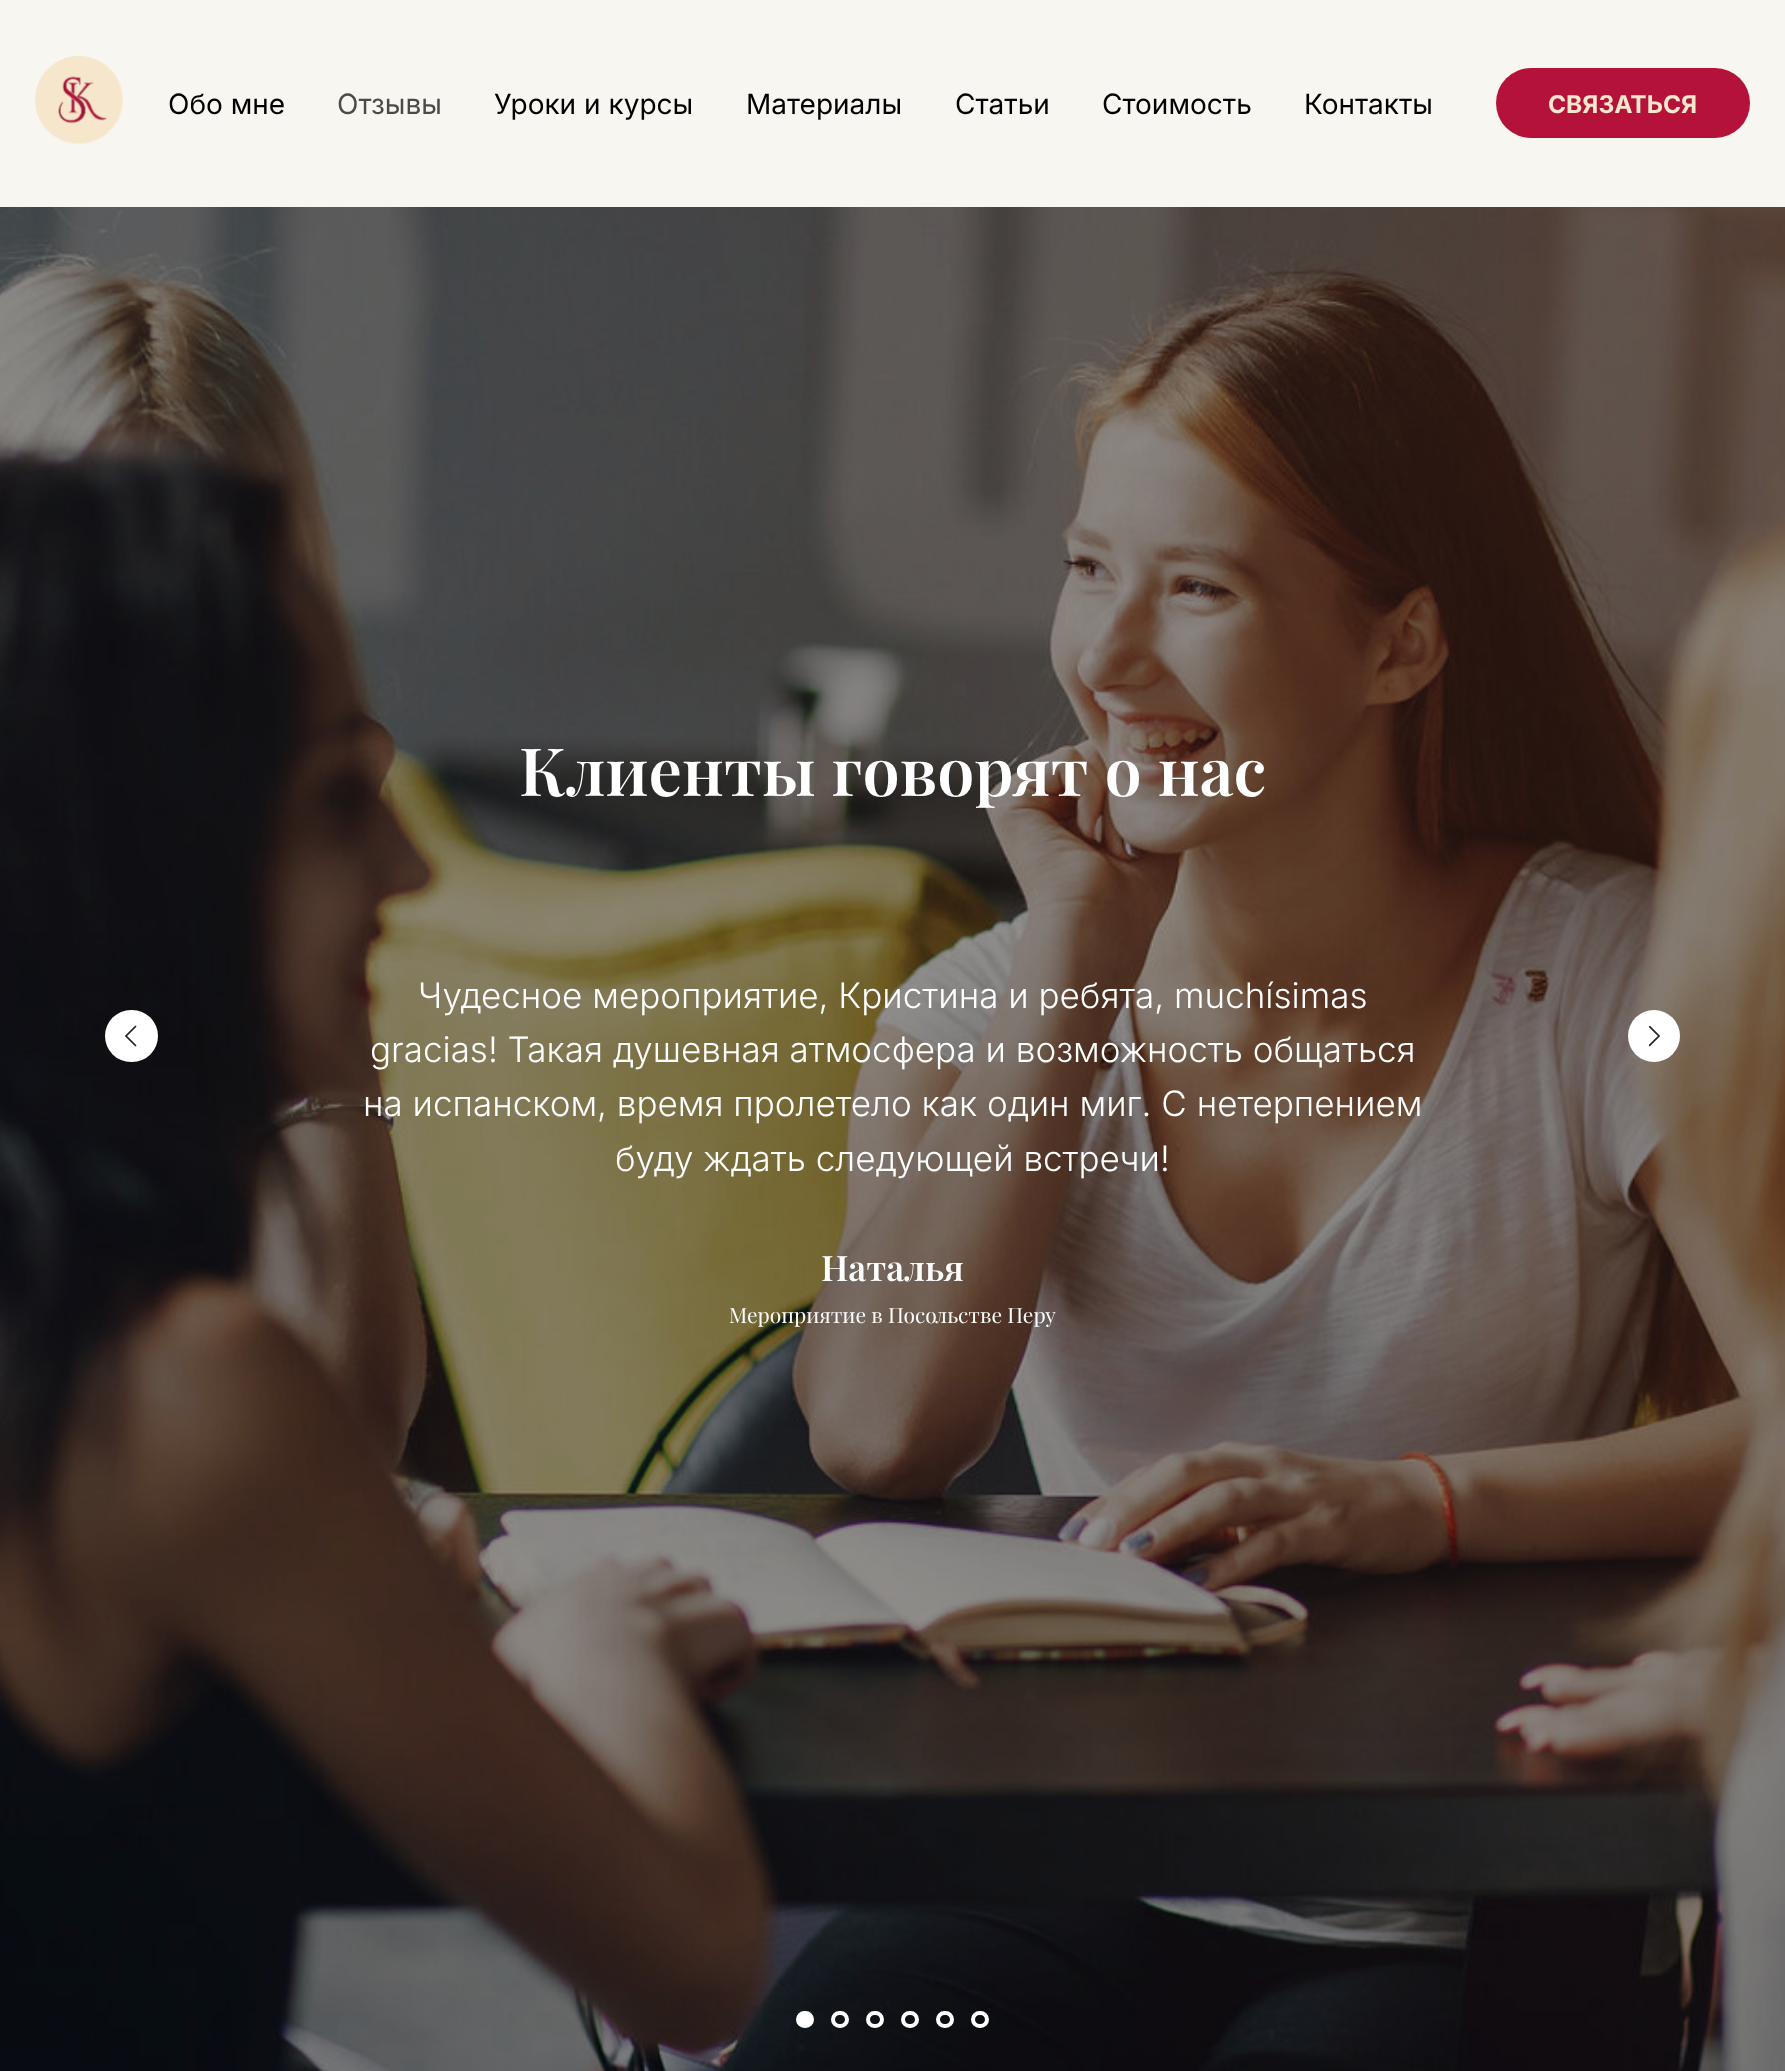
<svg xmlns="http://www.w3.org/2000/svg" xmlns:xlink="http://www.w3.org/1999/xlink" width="1785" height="2071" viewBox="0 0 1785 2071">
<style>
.cls-1{font:28px Inter;fill:#000000}
.cls-2{font:28px Inter;fill:#4a4a48}
.cls-3{font:bold 24.5px Inter;fill:#f7e7cc}
.cls-4{font:600 66.5px Playfair Display;fill:#ffffff}
.cls-5{font:300 35px Inter;fill:#ffffff}
.cls-6{font:600 35px Playfair Display;fill:#ffffff}
.cls-7{font:21px Playfair Display;fill:#ffffff}
</style>
<defs>
<clipPath id="clip1"><rect x="1649" y="1026" width="12" height="21"/></clipPath>
</defs>
<rect width="100%" height="100%" fill="#ffffff"/>
<rect fill="#f8f6f1" x="0" y="0" width="1785" height="207"/>
<image xlink:href="image0.png" x="35" y="56" width="88" height="88"/>
<rect fill="#b5123b" x="1496" y="68" width="254" height="70" rx="35"/>
<image xlink:href="image1.png" x="0" y="207" width="1785" height="1864"/>
<rect fill="#ffffff" x="105" y="1010" width="53" height="52" rx="26"/>
<path fill="none" stroke="#222222" stroke-width="1.7" d="M136 1046L126 1036L136 1026"/>
<circle fill="#ffffff" cx="1654" cy="1036" r="26"/>
<g clip-path="url(#clip1)">
<path fill="none" stroke="#222222" stroke-width="1.7" d="M1649 1026L1659 1036L1649 1046"/>
</g>
<rect fill="#ffffff" stroke="#ffffff" stroke-width="4" x="798" y="2013" width="14" height="13" rx="6.5"/>
<rect fill="none" stroke="#ffffff" stroke-width="4" x="833" y="2013" width="14" height="13" rx="6.5"/>
<rect fill="none" stroke="#ffffff" stroke-width="4" x="868" y="2013" width="14" height="13" rx="6.5"/>
<rect fill="none" stroke="#ffffff" stroke-width="4" x="903" y="2013" width="14" height="13" rx="6.5"/>
<rect fill="none" stroke="#ffffff" stroke-width="4" x="938" y="2013" width="14" height="13" rx="6.5"/>
<rect fill="none" stroke="#ffffff" stroke-width="4" x="973" y="2013" width="14" height="13" rx="6.5"/>
<text class="cls-1" x="168" y="114">Обо мне</text>
<text class="cls-2" x="337" y="114">Отзывы</text>
<text class="cls-1" x="494" y="114">Уроки и курсы</text>
<text class="cls-1" x="746" y="114">Материалы</text>
<text class="cls-1" x="955" y="114">Статьи</text>
<text class="cls-1" x="1102" y="114">Стоимость</text>
<text class="cls-1" x="1304" y="114">Контакты</text>
<text class="cls-3" x="1548" y="113">СВЯЗАТЬСЯ</text>
<text class="cls-4" x="519" y="796">Клиенты говорят о нас</text>
<text class="cls-5" x="418" y="1008">Чудесное мероприятие, Кристина и ребята, muchísimas</text>
<text class="cls-5" x="370" y="1062">gracias! Такая душевная атмосфера и возможность общаться</text>
<text class="cls-5" x="363" y="1116">на испанском, время пролетело как один миг. С нетерпением</text>
<text class="cls-5" x="615" y="1171">буду ждать следующей встречи!</text>
<text class="cls-6" x="821" y="1281">Наталья</text>
<text class="cls-7" x="729" y="1323">Мероприятие в Посольстве Перу</text>
</svg>
